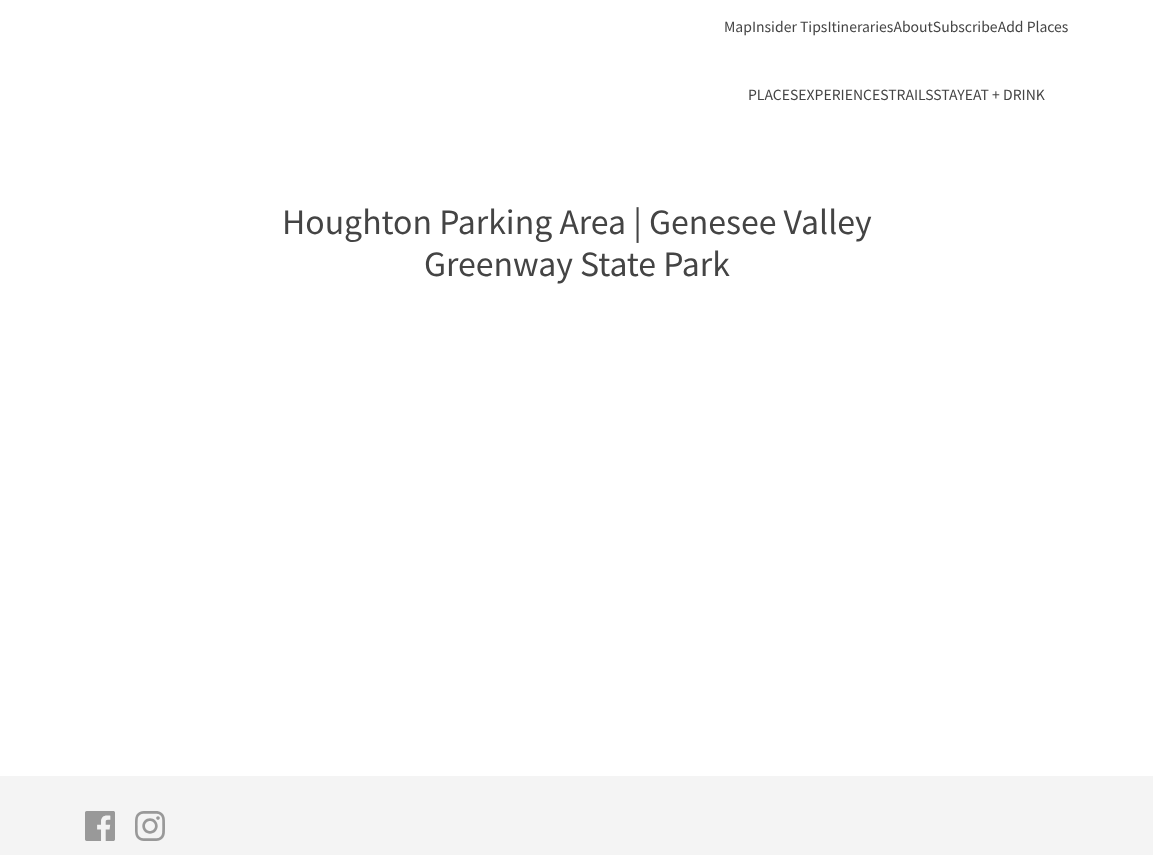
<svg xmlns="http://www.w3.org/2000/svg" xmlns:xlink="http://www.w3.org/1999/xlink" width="1153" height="855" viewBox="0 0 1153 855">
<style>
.cls-1{font:14px Noto Sans JP;fill:#444444}
.cls-2{font:32px Noto Sans JP;fill:#444444}
</style>
<rect width="100%" height="100%" fill="#ffffff"/>
<rect fill="#f4f4f4" x="0" y="776" width="1153" height="79"/>
<image xlink:href="image0.png" x="85" y="811" width="30" height="30"/>
<image xlink:href="image1.png" x="135" y="811" width="30" height="30"/>
<text class="cls-1" x="724" y="32">MapInsider TipsItinerariesAboutSubscribeAdd Places</text>
<text class="cls-1" x="748" y="100">PLACESEXPERIENCESTRAILSSTAYEAT + DRINK</text>
<text class="cls-2" x="282" y="234">Houghton Parking Area | Genesee Valley</text>
<text class="cls-2" x="424" y="276">Greenway State Park</text>
</svg>
